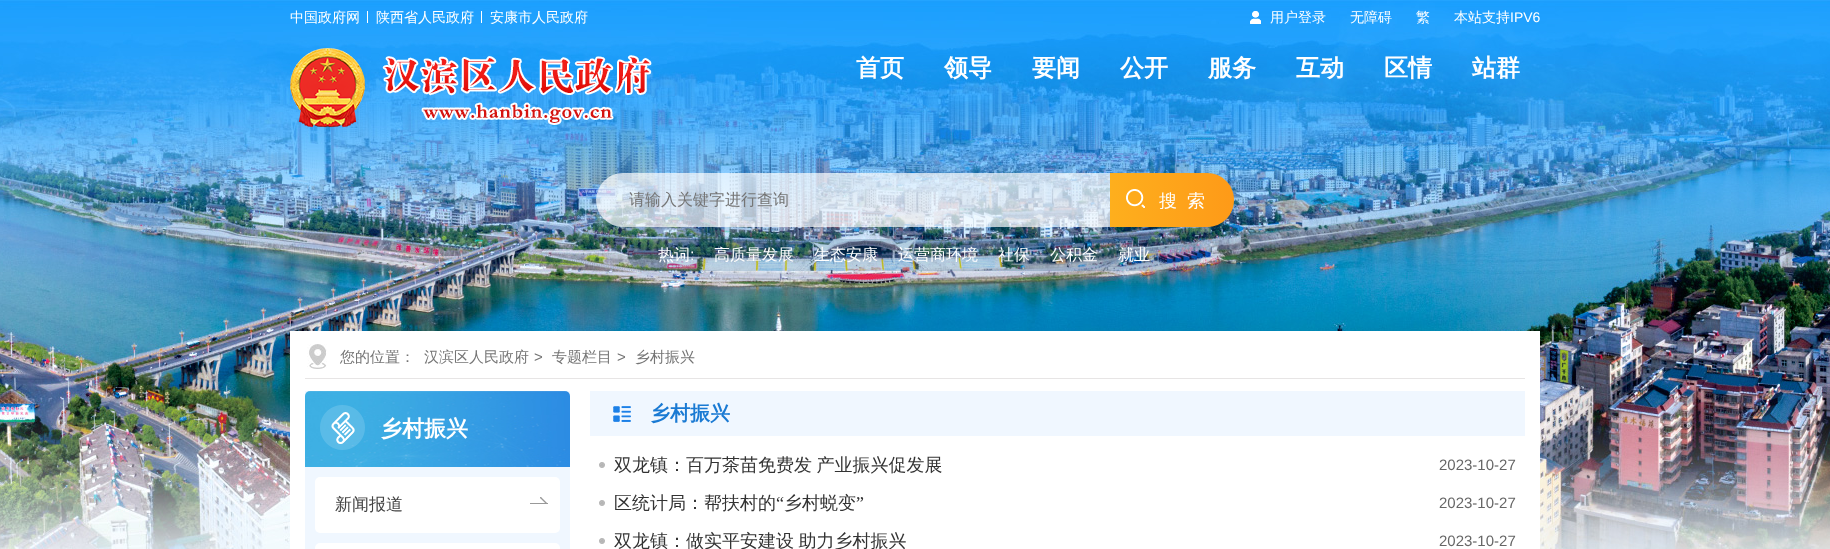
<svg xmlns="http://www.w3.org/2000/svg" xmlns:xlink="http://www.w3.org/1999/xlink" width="1830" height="549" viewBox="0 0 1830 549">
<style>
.cls-1{font:500 14px WenQuanYi Zen Hei;fill:#ffffff}
.cls-2{font:14px Liberation Sans;fill:#ffffff}
.cls-3{font:bold 24px WenQuanYi Zen Hei;fill:#ffffff}
.cls-4{font:500 16px WenQuanYi Zen Hei;fill:#757575}
.cls-5{font:500 18px WenQuanYi Zen Hei;letter-spacing:10px;fill:#ffffff}
.cls-6{font:500 16px WenQuanYi Zen Hei;fill:#ffffff}
.cls-7{font:16px Liberation Sans;fill:#ffffff}
.cls-8{font:500 15px WenQuanYi Zen Hei;fill:#757575}
.cls-9{font:15px Liberation Sans;fill:#757575}
.cls-10{font:bold 22px WenQuanYi Zen Hei;fill:#ffffff}
.cls-11{font:500 17px WenQuanYi Zen Hei;fill:#444444}
.cls-12{font:bold 20px WenQuanYi Zen Hei;fill:#1a7ad3}
.cls-13{font:500 18px WenQuanYi Zen Hei;fill:#333333}
.cls-14{font:15px Liberation Sans;fill:#666666}
.cls-15{font:18px Liberation Serif;fill:#333333}
</style>
<defs>
<linearGradient id="g1" gradientUnits="userSpaceOnUse" x1="1110" y1="200" x2="1234" y2="200"><stop offset="0" stop-color="#feaf1d"/><stop offset="1" stop-color="#fe9a18"/></linearGradient>
<clipPath id="clip1"><rect x="1110" y="173" width="124" height="36"/></clipPath>
</defs>
<rect width="100%" height="100%" fill="#ffffff"/>
<image xlink:href="image0.png" x="0" y="0" width="1830" height="549"/>
<rect fill="#ffffff" x="367" y="11" width="1" height="12"/>
<rect fill="#ffffff" x="481" y="11" width="1" height="12"/>
<image xlink:href="image1.png" x="1250" y="11" width="11" height="13"/>
<image xlink:href="image2.png" x="290" y="48" width="362" height="80"/>
<image xlink:href="image3.png" x="596" y="173" width="514" height="54"/>
<path fill="url(#g1)" d="M1110 173H1207C1222 173 1234 185 1234 200C1234 215 1222 227 1207 227H1110Z"/>
<image xlink:href="image4.png" x="1126" y="189" width="19" height="19"/>
<rect fill="#00416e" fill-opacity="0.2" x="628" y="239" width="574" height="32" rx="16"/>
<rect fill="#ffffff" x="290" y="331" width="1250" height="218"/>
<image xlink:href="image5.png" x="307" y="344" width="20" height="25"/>
<rect fill="#e7e5e5" x="305" y="378" width="1220" height="1"/>
<rect fill="#f0f7ff" x="305" y="391" width="265" height="158"/>
<image xlink:href="image6.png" x="305" y="391" width="265" height="76"/>
<image xlink:href="image7.png" x="320" y="405" width="45" height="45"/>
<rect fill="#ffffff" x="315" y="477" width="245" height="56" rx="5"/>
<image xlink:href="image8.png" x="530" y="497" width="18" height="7"/>
<rect fill="#ffffff" x="315" y="543" width="245" height="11" rx="5"/>
<rect fill="#f0f7ff" x="590" y="391" width="935" height="45"/>
<image xlink:href="image9.png" x="613" y="406" width="18" height="16"/>
<image xlink:href="image10.png" x="599" y="462" width="6" height="6"/>
<image xlink:href="image10.png" x="599" y="500" width="6" height="6"/>
<image xlink:href="image10.png" x="599" y="538" width="6" height="6"/>
<text class="cls-1" x="290" y="22">中国政府网</text>
<text class="cls-1" x="376" y="22">陕西省人民政府</text>
<text class="cls-1" x="490" y="22">安康市人民政府</text>
<text class="cls-1" x="1270" y="22">用户登录</text>
<text class="cls-1" x="1350" y="22">无障碍</text>
<text class="cls-1" x="1416" y="22">繁</text>
<text class="cls-1" x="1454" y="22">本站支持</text>
<text class="cls-2" x="1510" y="22">IPV6</text>
<text class="cls-3" x="856" y="76">首页</text>
<text class="cls-3" x="944" y="76">领导</text>
<text class="cls-3" x="1032" y="76">要闻</text>
<text class="cls-3" x="1120" y="76">公开</text>
<text class="cls-3" x="1208" y="76">服务</text>
<text class="cls-3" x="1296" y="76">互动</text>
<text class="cls-3" x="1384" y="76">区情</text>
<text class="cls-3" x="1472" y="76">站群</text>
<text class="cls-4" x="629" y="205">请输入关键字进行查询</text>
<g clip-path="url(#clip1)">
<text class="cls-5" x="1159" y="207">搜索</text>
</g>
<text class="cls-6" x="658" y="260">热词</text>
<text class="cls-7" x="690" y="260">:</text>
<text class="cls-6" x="714" y="260">高质量发展</text>
<text class="cls-6" x="814" y="260">生态安康</text>
<text class="cls-6" x="898" y="260">运营商环境</text>
<text class="cls-6" x="998" y="260">社保</text>
<text class="cls-6" x="1050" y="260">公积金</text>
<text class="cls-6" x="1118" y="260">就业</text>
<text class="cls-8" x="340" y="362">您的位置：</text>
<text class="cls-8" x="424" y="362">汉滨区人民政府</text>
<text class="cls-9" x="534" y="362">&gt;</text>
<text class="cls-8" x="552" y="362">专题栏目</text>
<text class="cls-9" x="617" y="362">&gt;</text>
<text class="cls-8" x="635" y="362">乡村振兴</text>
<text class="cls-10" x="380" y="436">乡村振兴</text>
<text class="cls-11" x="335" y="510">新闻报道</text>
<text class="cls-12" x="650" y="420">乡村振兴</text>
<text class="cls-13" x="614" y="471" word-spacing="-1">双龙镇：百万茶苗免费发 产业振兴促发展</text>
<text class="cls-14" x="1439" y="470">2023-10-27</text>
<text class="cls-13" x="614" y="509">区统计局：帮扶村的</text>
<text class="cls-15" x="776" y="509">“</text>
<text class="cls-13" x="784" y="509">乡村蜕变</text>
<text class="cls-15" x="856" y="509">”</text>
<text class="cls-14" x="1439" y="508">2023-10-27</text>
<text class="cls-13" x="614" y="547" word-spacing="-1">双龙镇：做实平安建设 助力乡村振兴</text>
<text class="cls-14" x="1439" y="546">2023-10-27</text>
</svg>
